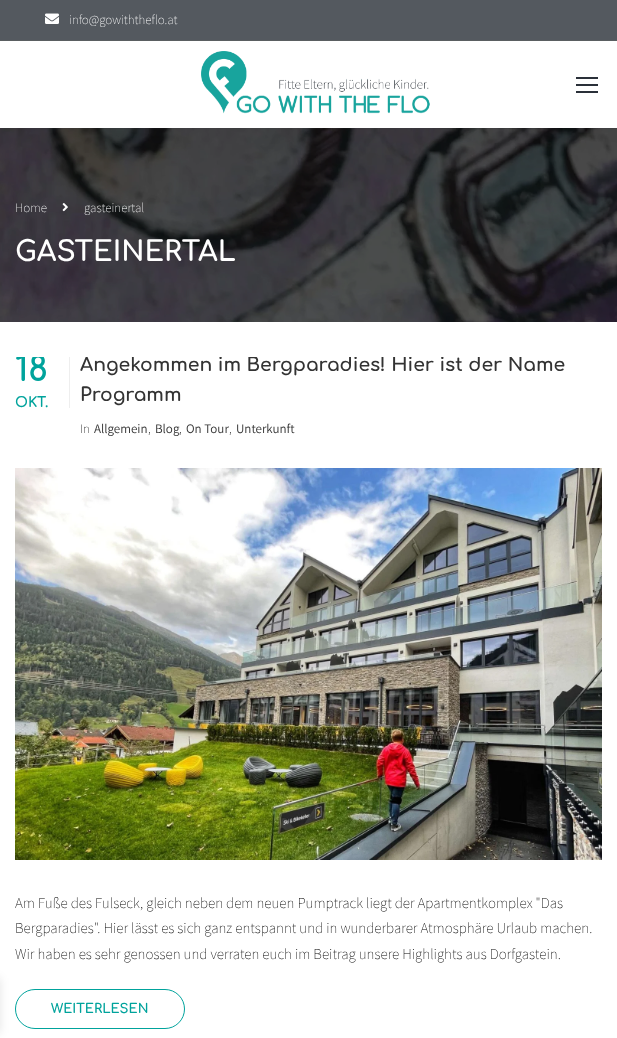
<svg xmlns="http://www.w3.org/2000/svg" xmlns:xlink="http://www.w3.org/1999/xlink" width="617" height="1038" viewBox="0 0 617 1038">
<style>
.cls-1{font:200 13px Assistant;fill:#ffffff}
.cls-2{font:bold 28px Comfortaa;fill:#ffffff}
.cls-3{font:bold 34px Comfortaa;fill:#00a39c}
.cls-4{font:bold 14px Comfortaa;fill:#00a39c}
.cls-5{font:bold 18.75px Comfortaa;fill:#333333}
.cls-6{font:200 13px Assistant;fill:#000000}
.cls-7{font:13px Assistant;fill:#333333}
.cls-8{font:200 15px Assistant;fill:#000000}
.cls-9{font:bold 13px Comfortaa;fill:#00a39c}
</style>
<defs>
<clipPath id="clip1"><rect x="15" y="357" width="587" height="81"/></clipPath>
<clipPath id="clip2"><rect x="80" y="357" width="487" height="53"/></clipPath>
</defs>
<rect width="100%" height="100%" fill="#ffffff"/>
<rect fill="none" stroke="#00a39c" x="15.5" y="989.5" width="169" height="39" rx="19.5"/>
<rect fill="#000000" fill-opacity="0.1" filter="blur(5px)" x="-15" y="978" width="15" height="55"/>
<rect fill="#54595f" x="0" y="0" width="617" height="40"/>
<rect fill="#5a5e61" x="0" y="40" width="617" height="1"/>
<image xlink:href="image0.png" x="45" y="13" width="14" height="11"/>
<image xlink:href="image1.png" x="201" y="51" width="229" height="63"/>
<rect fill="#2a3039" x="576" y="77" width="22" height="2"/>
<rect fill="#2a3039" x="576" y="84" width="22" height="2"/>
<rect fill="#2a3039" x="576" y="91" width="22" height="2"/>
<image xlink:href="image2.png" x="0" y="128" width="617" height="194"/>
<image xlink:href="image3.png" x="62" y="203" width="6" height="9"/>
<rect fill="#eeeeee" x="69" y="357" width="1" height="51"/>
<image xlink:href="image4.png" x="15" y="468" width="587" height="392"/>
<text class="cls-1" x="69" y="24">info@gowiththeflo.at</text>
<text class="cls-1" x="15" y="212">Home</text>
<text class="cls-1" x="84" y="212">gasteinertal</text>
<text class="cls-2" x="15" y="261">GASTEINERTAL</text>
<g clip-path="url(#clip1)">
<text class="cls-3" x="15" y="381">18</text>
</g>
<text class="cls-4" x="15" y="407">OKT.</text>
<g clip-path="url(#clip2)">
<text class="cls-5" x="80" y="371">Angekommen im Bergparadies! Hier ist der Name</text>
</g>
<text class="cls-5" x="80" y="401">Programm</text>
<text class="cls-6" x="80" y="433">In</text>
<text class="cls-7" x="94" y="433">Allgemein</text>
<text class="cls-6" x="148" y="433">,</text>
<text class="cls-7" x="155" y="433">Blog</text>
<text class="cls-6" x="179" y="433">,</text>
<text class="cls-7" x="186" y="433">On Tour</text>
<text class="cls-6" x="229" y="433">,</text>
<text class="cls-7" x="236" y="433">Unterkunft</text>
<text class="cls-8"><tspan x="15" y="908">Am Fuße des Fulseck, gleich neben dem neuen Pumptrack liegt der Apartmentkomplex "Das</tspan><tspan x="15" y="933">Bergparadies". Hier lässt es sich ganz entspannt und in wunderbarer Atmosphäre Urlaub machen.</tspan><tspan x="15" y="959">Wir haben es sehr genossen und verraten euch im Beitrag unsere Highlights aus Dorfgastein.</tspan></text>
<text class="cls-9" x="51" y="1013">WEITERLESEN</text>
</svg>
